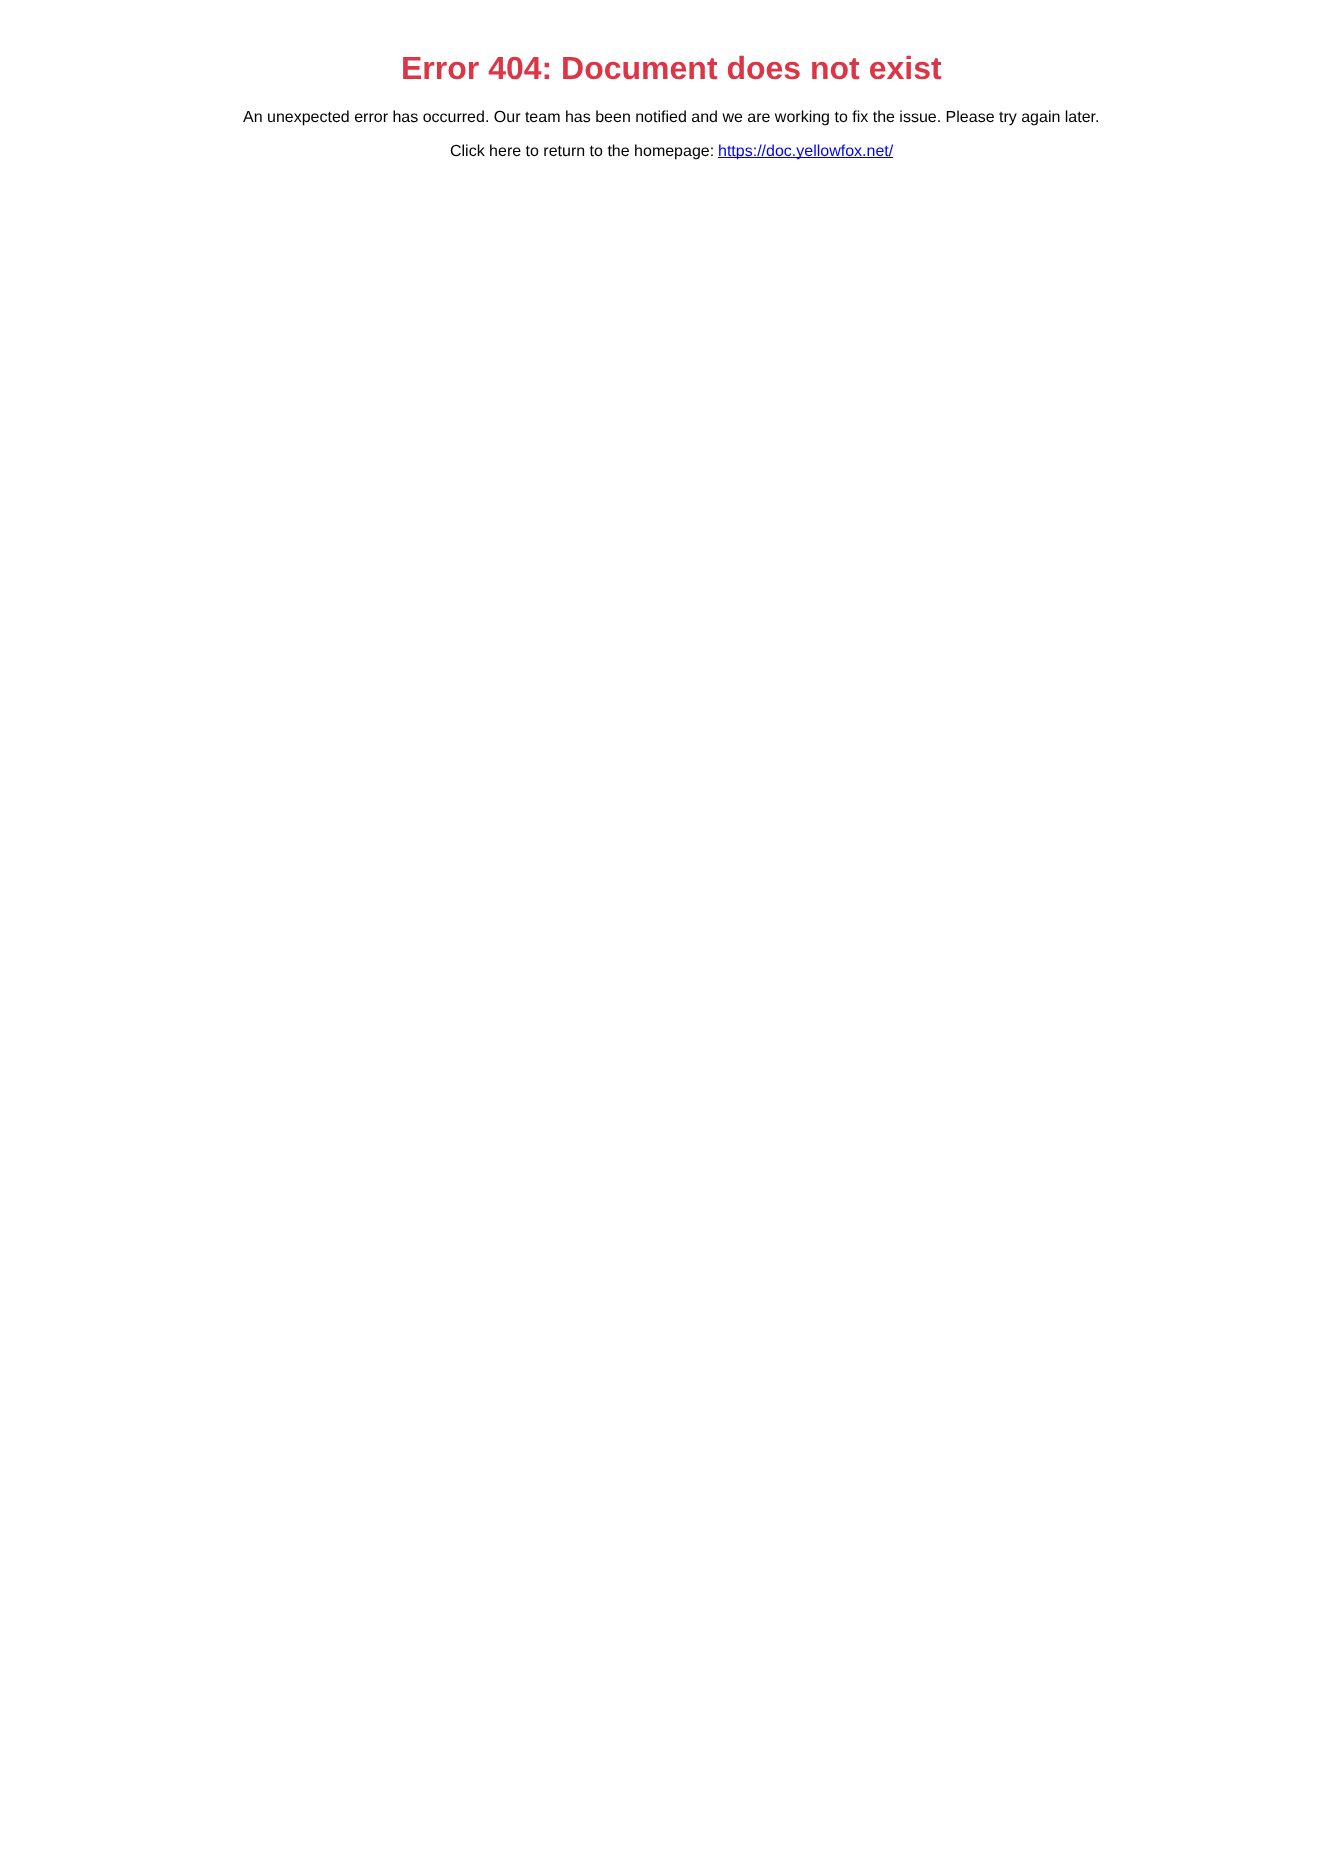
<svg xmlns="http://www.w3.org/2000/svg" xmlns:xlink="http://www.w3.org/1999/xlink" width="1343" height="1869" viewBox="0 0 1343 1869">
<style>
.cls-1{font:bold 32px Liberation Sans;fill:#dc3545}
.cls-2{font:16px Liberation Sans;fill:#000000}
.cls-3{font:16px Liberation Sans;fill:#0000ee}
</style>
<rect width="100%" height="100%" fill="#ffffff"/>
<rect fill="#0000ee" x="718" y="157" width="175" height="1"/>
<text class="cls-1" x="401" y="79">Error 404: Document does not exist</text>
<text class="cls-2" x="243" y="122">An unexpected error has occurred. Our team has been notified and we are working to fix the issue. Please try again later.</text>
<text class="cls-2" x="450" y="156">Click here to return to the homepage:</text>
<text class="cls-3" x="718" y="156">https://doc.yellowfox.net/</text>
</svg>
